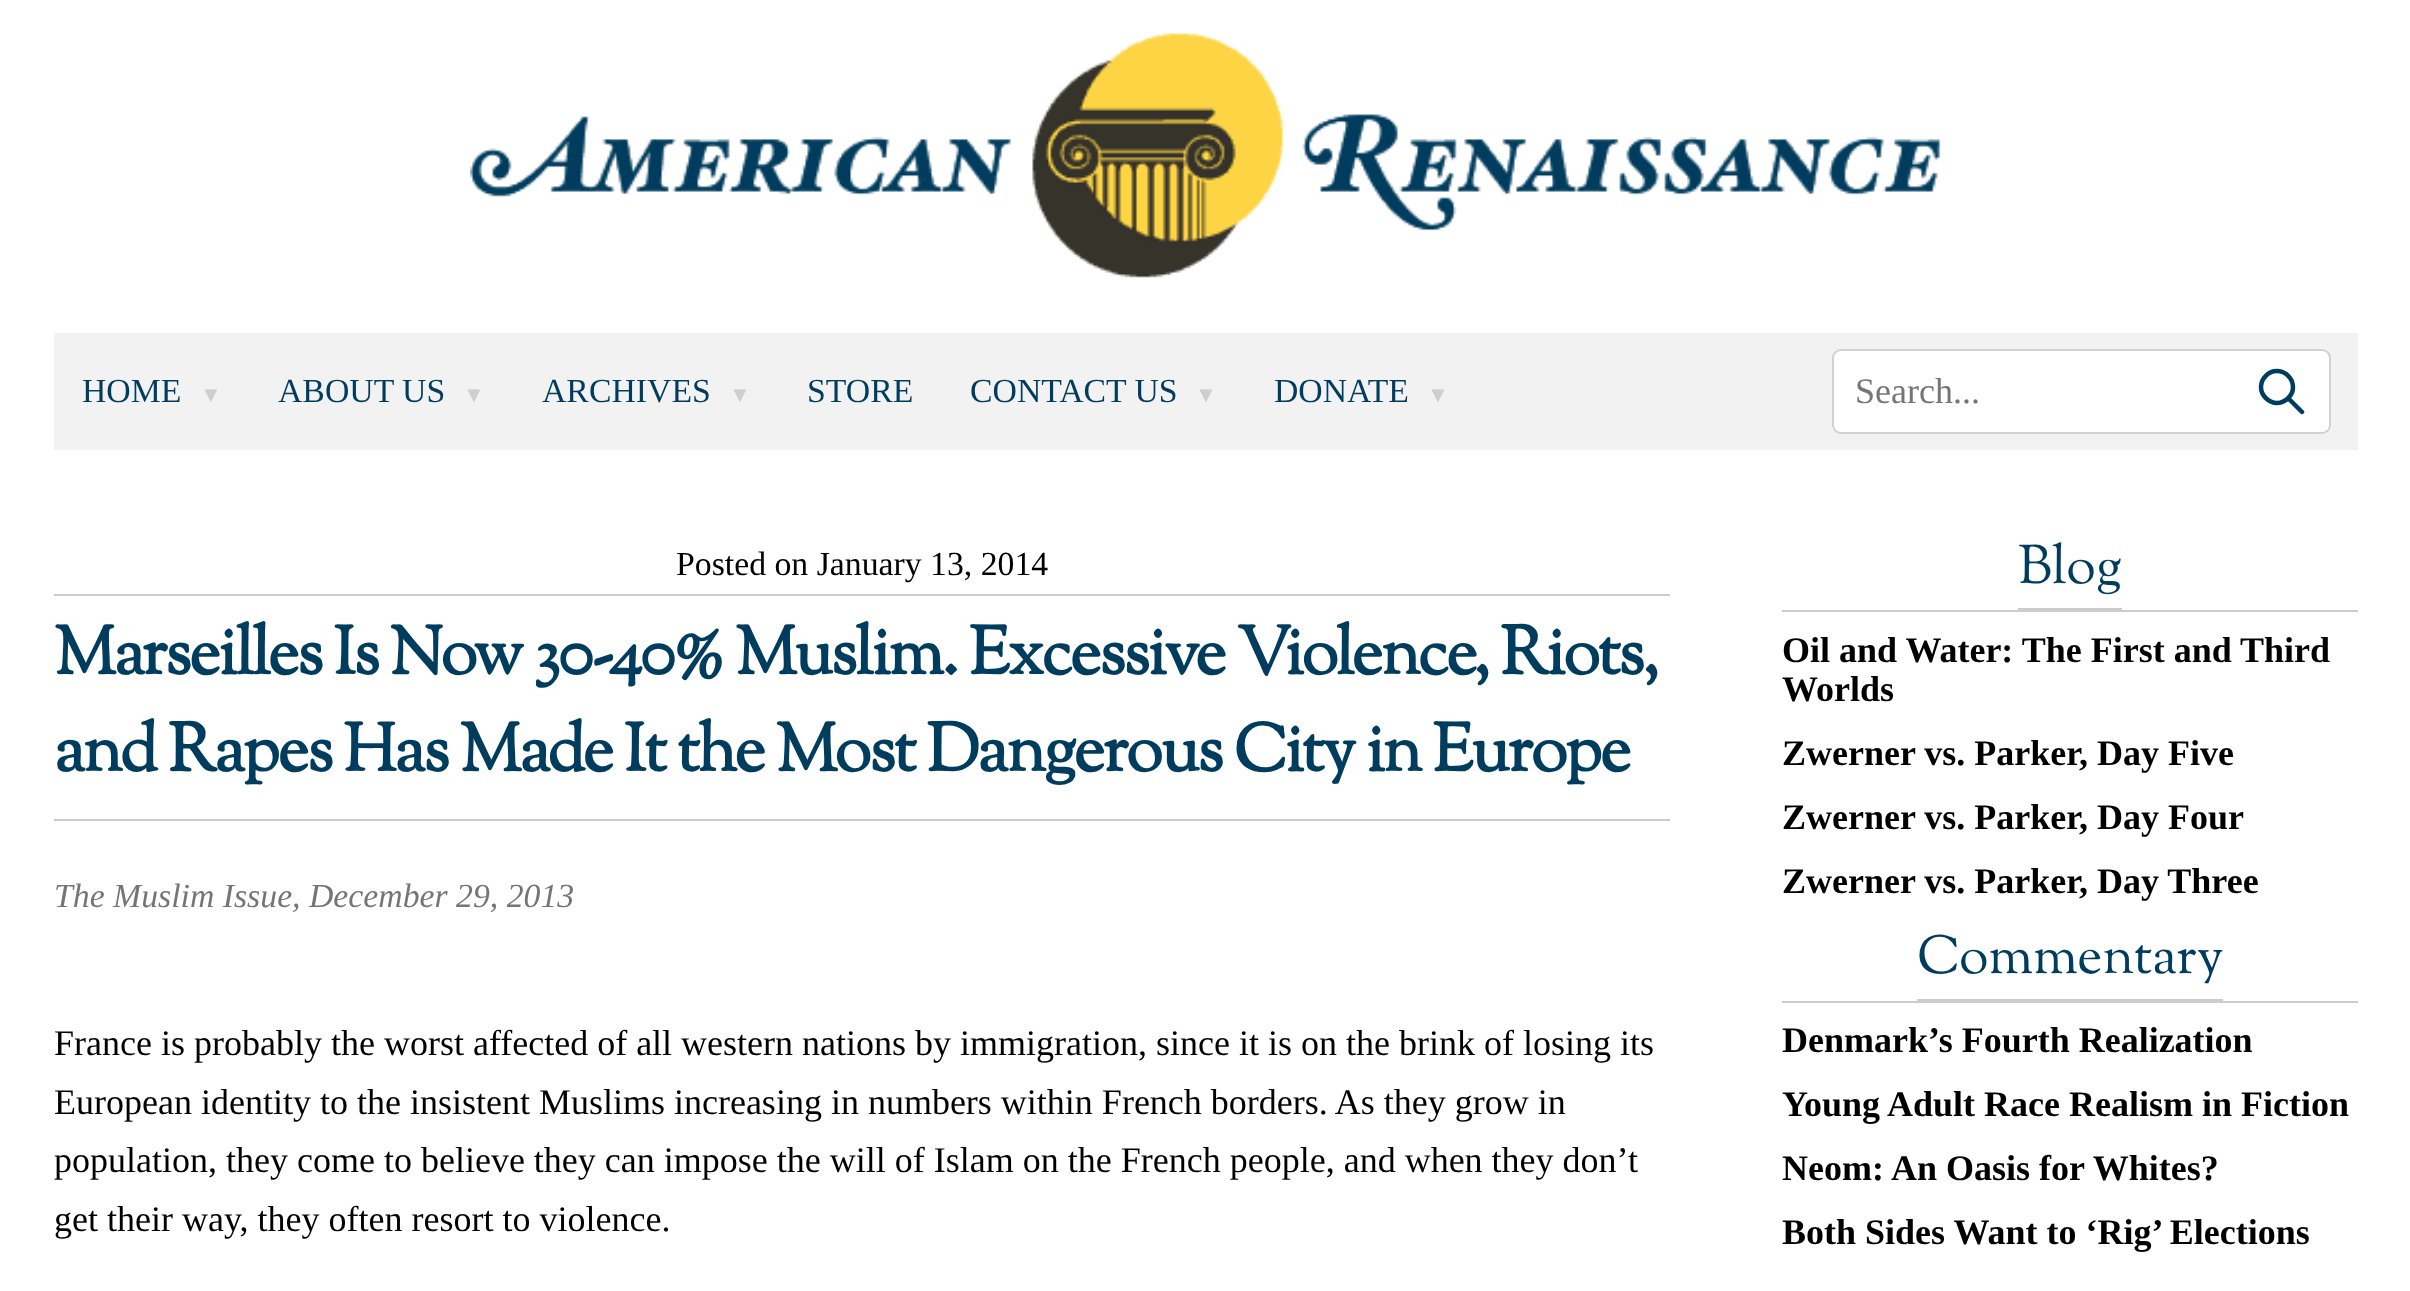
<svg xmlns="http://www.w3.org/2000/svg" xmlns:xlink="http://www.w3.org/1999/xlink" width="2410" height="1291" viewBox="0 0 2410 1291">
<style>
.cls-1{font:33.75px Liberation Serif;fill:#003c5e}
.cls-2{font:22px Liberation Serif;fill:#cecece}
.cls-3{font:36px Liberation Serif;fill:#757575}
.cls-4{font:33.75px Liberation Serif;fill:#000000}
.cls-5{font:bold 67.5px Sorts Mill Goudy;letter-spacing:-2.25px;fill:#003c5e}
.cls-6{font:italic 33.75px Liberation Serif;fill:#757575}
.cls-7{font:36px Liberation Serif;fill:#000000}
.cls-8{font:54px Sorts Mill Goudy;fill:#003c5e}
.cls-9{font:bold 36px Liberation Serif;fill:#000000}
</style>
<rect width="100%" height="100%" fill="#ffffff"/>
<image xlink:href="image0.png" x="470" y="33" width="1471" height="245"/>
<rect fill="#f2f2f2" x="54" y="333" width="2304" height="117"/>
<rect fill="#ffffff" stroke="#d1d1d1" stroke-width="2" x="1833" y="350" width="497" height="83" rx="8"/>
<path fill="none" stroke="#003c5e" stroke-width="4.5" stroke-linecap="round" stroke-linejoin="round" d="M2261 387C2261 395.5 2268.5 403 2277 403C2285.5 403 2293 395.5 2293 387C2293 378.5 2285.5 371 2277 371C2268.5 371 2261 378.5 2261 387M2302 412L2288 398"/>
<rect fill="#cccccc" x="54" y="594" width="1616" height="2"/>
<rect fill="#cccccc" x="54" y="819" width="1616" height="2"/>
<rect fill="#cccccc" x="1782" y="610" width="576" height="2"/>
<rect fill="#cccccc" x="2018" y="608" width="104" height="2"/>
<rect fill="#cccccc" x="1782" y="1001" width="576" height="2"/>
<rect fill="#cccccc" x="1917" y="999" width="306" height="2"/>
<text class="cls-1" x="82" y="402">HOME</text>
<text class="cls-2" x="200" y="402">▼</text>
<text class="cls-1" x="278" y="402">ABOUT US</text>
<text class="cls-2" x="463" y="402">▼</text>
<text class="cls-1" x="542" y="402">ARCHIVES</text>
<text class="cls-2" x="729" y="402">▼</text>
<text class="cls-1" x="807" y="402">STORE</text>
<text class="cls-1" x="970" y="402">CONTACT US</text>
<text class="cls-2" x="1195" y="402">▼</text>
<text class="cls-1" x="1274" y="402">DONATE</text>
<text class="cls-2" x="1427" y="402">▼</text>
<text class="cls-3" x="1855" y="403">Search...</text>
<text class="cls-4" x="676" y="575">Posted on January 13, 2014</text>
<text class="cls-5"><tspan x="54" y="674">Marseilles Is Now 30-40% Muslim. Excessive Violence, Riots,</tspan><tspan x="54" y="771">and Rapes Has Made It the Most Dangerous City in Europe</tspan></text>
<text class="cls-6" x="54" y="907">The Muslim Issue, December 29, 2013</text>
<text class="cls-7"><tspan x="54" y="1055">France is probably the worst affected of all western nations by immigration, since it is on the brink of losing its</tspan><tspan x="54" y="1114">European identity to the insistent Muslims increasing in numbers within French borders. As they grow in</tspan><tspan x="54" y="1172">population, they come to believe they can impose the will of Islam on the French people, and when they don’t</tspan><tspan x="54" y="1231">get their way, they often resort to violence.</tspan></text>
<text class="cls-8" x="2018" y="583">Blog</text>
<text class="cls-9"><tspan x="1782" y="662">Oil and Water: The First and Third</tspan><tspan x="1782" y="701">Worlds</tspan><tspan x="1782" y="765">Zwerner vs. Parker, Day Five</tspan><tspan x="1782" y="829">Zwerner vs. Parker, Day Four</tspan><tspan x="1782" y="893">Zwerner vs. Parker, Day Three</tspan></text>
<text class="cls-8" x="1917" y="973">Commentary</text>
<text class="cls-9"><tspan x="1782" y="1052">Denmark’s Fourth Realization</tspan><tspan x="1782" y="1116">Young Adult Race Realism in Fiction</tspan><tspan x="1782" y="1180">Neom: An Oasis for Whites?</tspan><tspan x="1782" y="1244">Both Sides Want to ‘Rig’ Elections</tspan></text>
</svg>
